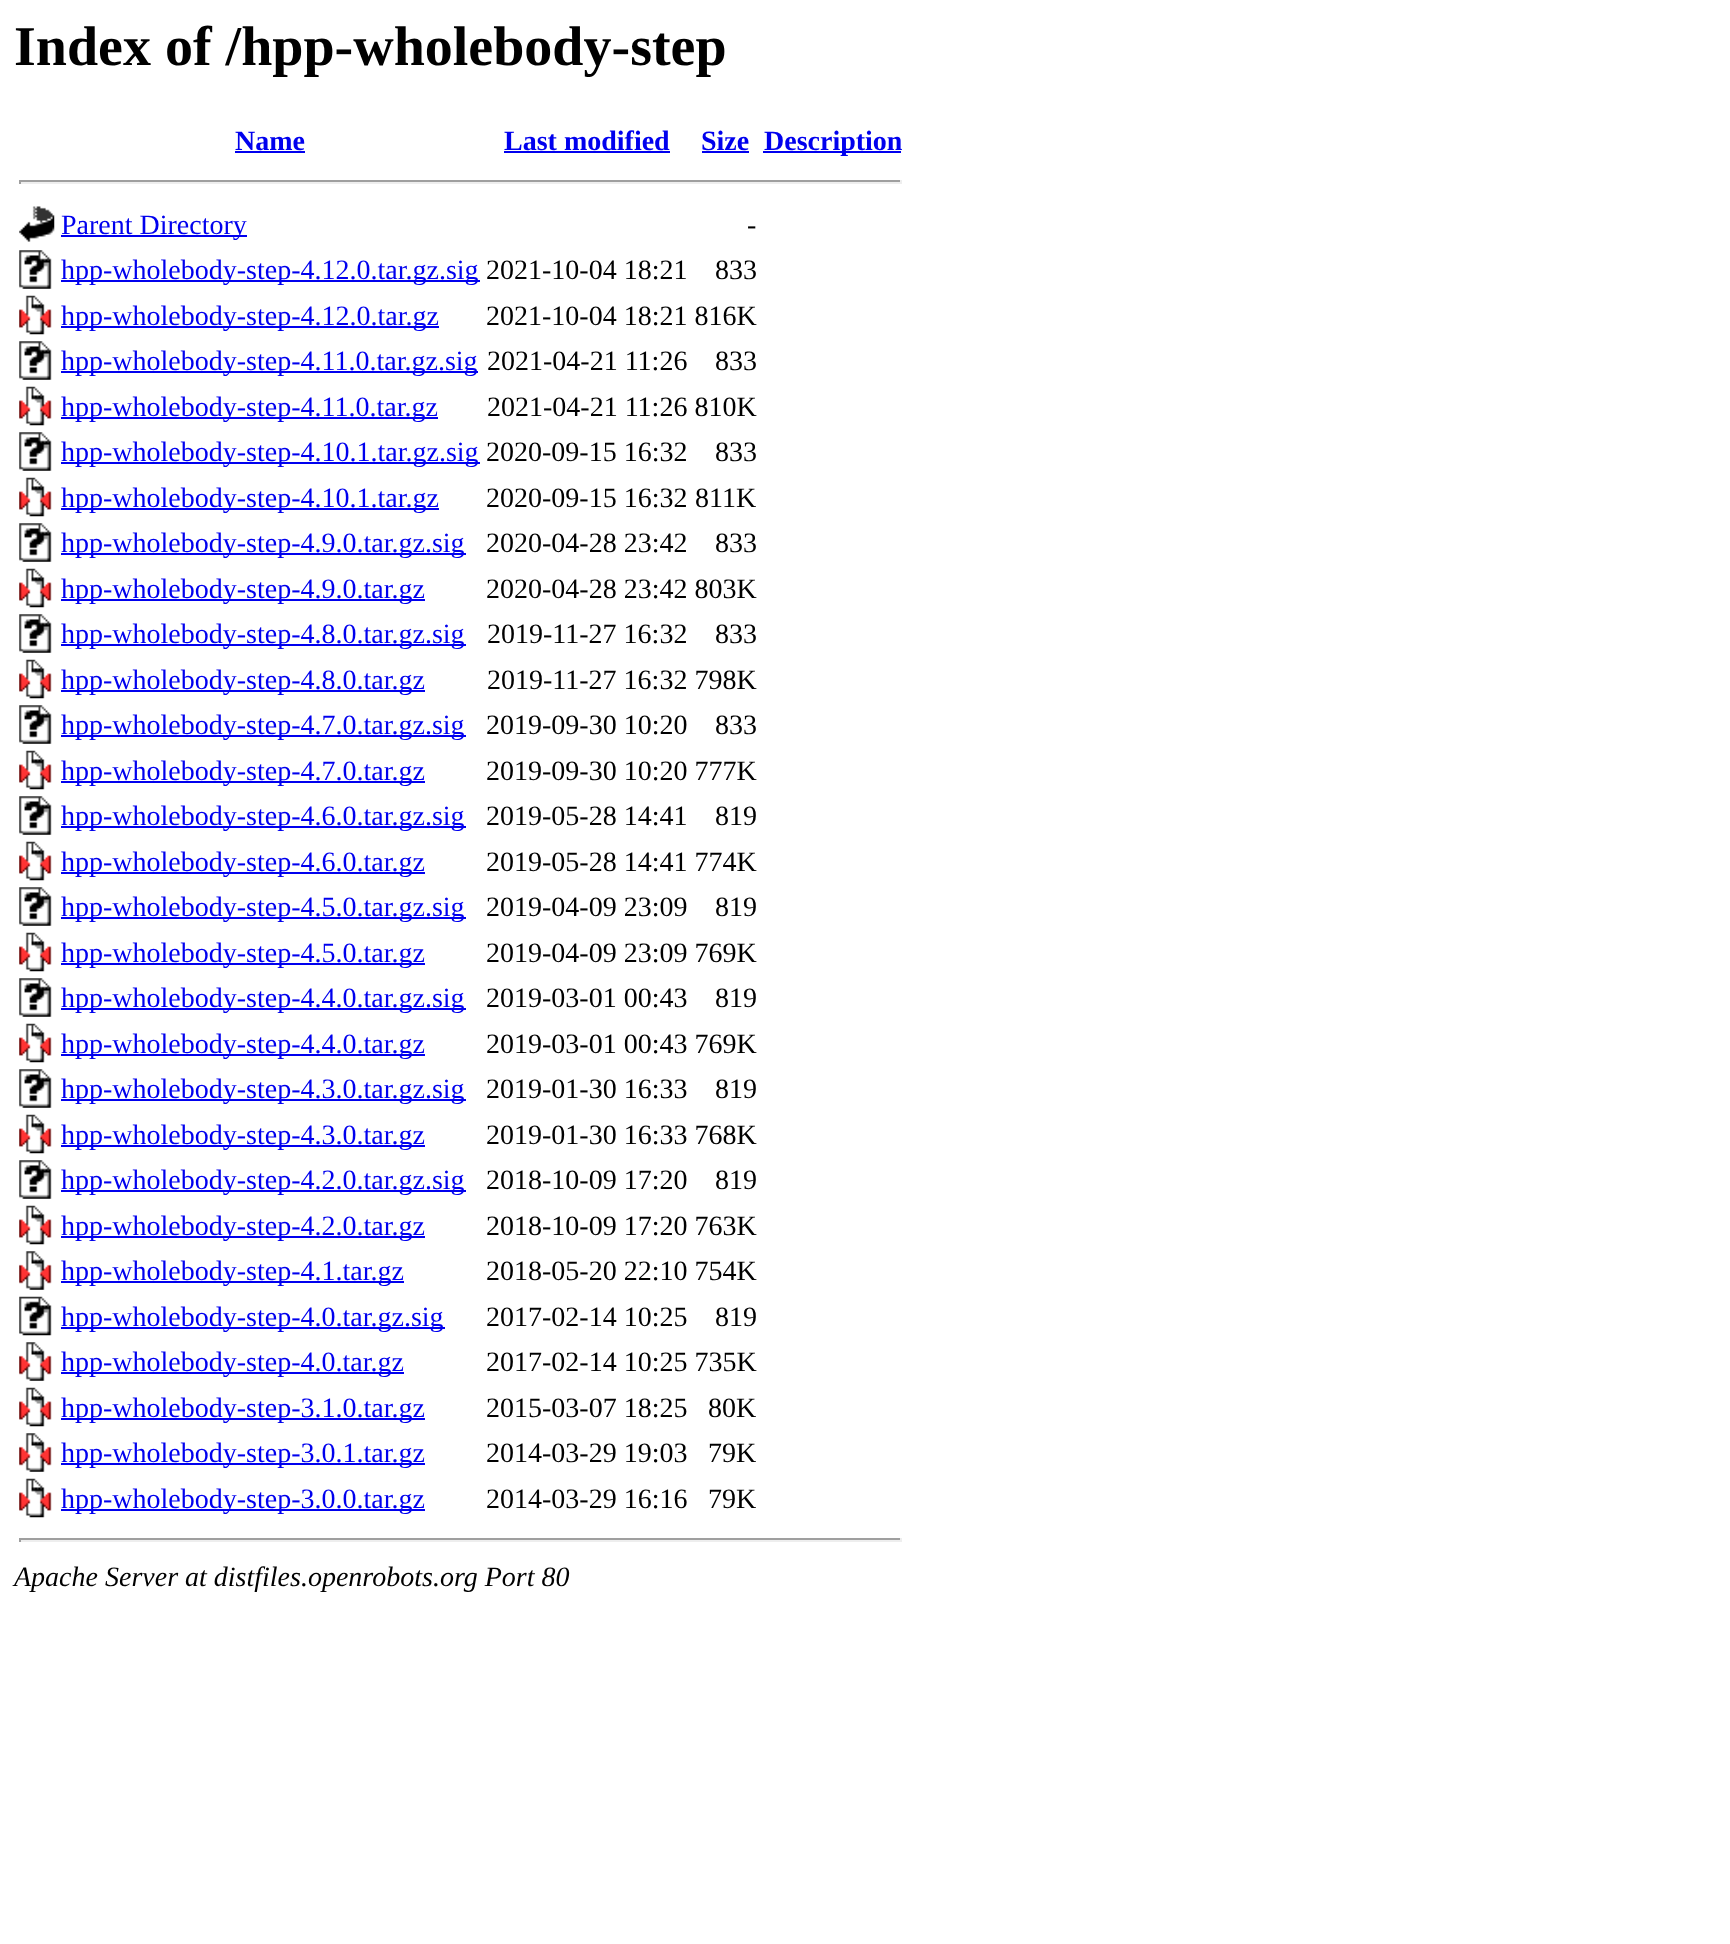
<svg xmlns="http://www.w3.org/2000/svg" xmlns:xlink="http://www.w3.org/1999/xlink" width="1730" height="1944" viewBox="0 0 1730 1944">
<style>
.cls-1{font:bold 56px Liberation Serif;fill:#000000}
.cls-2{font:bold 28px Liberation Serif;fill:#0000ee}
.cls-3{font:28px Liberation Serif;fill:#0000ee}
.cls-4{font:28px Liberation Serif;fill:#000000}
.cls-5{font:italic 28px Liberation Serif;fill:#000000}
</style>
<rect width="100%" height="100%" fill="#ffffff"/>
<rect fill="#0000ee" x="235" y="151" width="70" height="2"/>
<rect fill="#0000ee" x="504" y="151" width="166" height="2"/>
<rect fill="#0000ee" x="702" y="151" width="47" height="2"/>
<rect fill="#0000ee" x="763" y="151" width="138" height="2"/>
<rect fill="#9f9f9f" x="19" y="180" width="882" height="2"/>
<rect fill="#eeeeee" x="900" y="180" width="2" height="4"/>
<rect fill="#eeeeee" x="19" y="182" width="882" height="2"/>
<rect fill="#9f9f9f" x="19" y="180" width="2" height="4"/>
<image xlink:href="image0.png" x="19" y="206" width="36" height="36"/>
<rect fill="#0000ee" x="61" y="235" width="186" height="2"/>
<image xlink:href="image1.png" x="19" y="250" width="33" height="39"/>
<rect fill="#0000ee" x="61" y="280" width="419" height="2"/>
<image xlink:href="image2.png" x="19" y="295" width="33" height="40"/>
<rect fill="#0000ee" x="61" y="326" width="378" height="2"/>
<image xlink:href="image1.png" x="19" y="341" width="33" height="39"/>
<rect fill="#0000ee" x="61" y="371" width="417" height="2"/>
<image xlink:href="image2.png" x="19" y="386" width="33" height="40"/>
<rect fill="#0000ee" x="61" y="417" width="377" height="2"/>
<image xlink:href="image1.png" x="19" y="432" width="33" height="39"/>
<rect fill="#0000ee" x="61" y="462" width="419" height="2"/>
<image xlink:href="image2.png" x="19" y="477" width="33" height="40"/>
<rect fill="#0000ee" x="61" y="508" width="378" height="2"/>
<image xlink:href="image1.png" x="19" y="523" width="33" height="39"/>
<rect fill="#0000ee" x="61" y="553" width="405" height="2"/>
<image xlink:href="image2.png" x="19" y="568" width="33" height="40"/>
<rect fill="#0000ee" x="61" y="599" width="364" height="2"/>
<image xlink:href="image1.png" x="19" y="614" width="33" height="39"/>
<rect fill="#0000ee" x="61" y="644" width="405" height="2"/>
<image xlink:href="image2.png" x="19" y="659" width="33" height="40"/>
<rect fill="#0000ee" x="61" y="690" width="364" height="2"/>
<image xlink:href="image1.png" x="19" y="705" width="33" height="39"/>
<rect fill="#0000ee" x="61" y="735" width="405" height="2"/>
<image xlink:href="image2.png" x="19" y="750" width="33" height="40"/>
<rect fill="#0000ee" x="61" y="781" width="364" height="2"/>
<image xlink:href="image1.png" x="19" y="796" width="33" height="39"/>
<rect fill="#0000ee" x="61" y="826" width="405" height="2"/>
<image xlink:href="image2.png" x="19" y="841" width="33" height="40"/>
<rect fill="#0000ee" x="61" y="872" width="364" height="2"/>
<image xlink:href="image1.png" x="19" y="887" width="33" height="39"/>
<rect fill="#0000ee" x="61" y="917" width="405" height="2"/>
<image xlink:href="image2.png" x="19" y="932" width="33" height="40"/>
<rect fill="#0000ee" x="61" y="963" width="364" height="2"/>
<image xlink:href="image1.png" x="19" y="978" width="33" height="39"/>
<rect fill="#0000ee" x="61" y="1008" width="405" height="2"/>
<image xlink:href="image2.png" x="19" y="1023" width="33" height="40"/>
<rect fill="#0000ee" x="61" y="1054" width="364" height="2"/>
<image xlink:href="image1.png" x="19" y="1069" width="33" height="39"/>
<rect fill="#0000ee" x="61" y="1099" width="405" height="2"/>
<image xlink:href="image2.png" x="19" y="1114" width="33" height="40"/>
<rect fill="#0000ee" x="61" y="1145" width="364" height="2"/>
<image xlink:href="image1.png" x="19" y="1160" width="33" height="39"/>
<rect fill="#0000ee" x="61" y="1190" width="405" height="2"/>
<image xlink:href="image2.png" x="19" y="1205" width="33" height="40"/>
<rect fill="#0000ee" x="61" y="1236" width="364" height="2"/>
<image xlink:href="image3.png" x="19" y="1251" width="33" height="39"/>
<rect fill="#0000ee" x="61" y="1281" width="343" height="2"/>
<image xlink:href="image4.png" x="19" y="1296" width="33" height="40"/>
<rect fill="#0000ee" x="61" y="1327" width="384" height="2"/>
<image xlink:href="image3.png" x="19" y="1342" width="33" height="39"/>
<rect fill="#0000ee" x="61" y="1372" width="343" height="2"/>
<image xlink:href="image2.png" x="19" y="1387" width="33" height="40"/>
<rect fill="#0000ee" x="61" y="1418" width="364" height="2"/>
<image xlink:href="image3.png" x="19" y="1433" width="33" height="39"/>
<rect fill="#0000ee" x="61" y="1463" width="364" height="2"/>
<image xlink:href="image2.png" x="19" y="1478" width="33" height="40"/>
<rect fill="#0000ee" x="61" y="1509" width="364" height="2"/>
<rect fill="#9f9f9f" x="19" y="1538" width="882" height="2"/>
<rect fill="#eeeeee" x="900" y="1538" width="2" height="4"/>
<rect fill="#eeeeee" x="19" y="1540" width="882" height="2"/>
<rect fill="#9f9f9f" x="19" y="1538" width="2" height="4"/>
<text class="cls-1" x="14" y="65">Index of /hpp-wholebody-step</text>
<text class="cls-2" x="235" y="150">Name</text>
<text class="cls-2" x="504" y="150">Last modified</text>
<text class="cls-2" x="701" y="150">Size</text>
<text class="cls-2" x="764" y="150">Description</text>
<text class="cls-3" x="61" y="234">Parent Directory</text>
<text class="cls-4" x="747" y="234">-</text>
<text class="cls-3" x="61" y="279">hpp-wholebody-step-4.12.0.tar.gz.sig</text>
<text class="cls-4" x="486" y="279">2021-10-04 18:21</text>
<text class="cls-4" x="715" y="279">833</text>
<text class="cls-3" x="61" y="325">hpp-wholebody-step-4.12.0.tar.gz</text>
<text class="cls-4" x="486" y="325">2021-10-04 18:21 816K</text>
<text class="cls-3" x="61" y="370">hpp-wholebody-step-4.11.0.tar.gz.sig</text>
<text class="cls-4" x="487" y="370">2021-04-21 11:26</text>
<text class="cls-4" x="715" y="370">833</text>
<text class="cls-3" x="61" y="416">hpp-wholebody-step-4.11.0.tar.gz</text>
<text class="cls-4" x="487" y="416">2021-04-21 11:26 810K</text>
<text class="cls-3" x="61" y="461">hpp-wholebody-step-4.10.1.tar.gz.sig</text>
<text class="cls-4" x="486" y="461">2020-09-15 16:32</text>
<text class="cls-4" x="715" y="461">833</text>
<text class="cls-3" x="61" y="507">hpp-wholebody-step-4.10.1.tar.gz</text>
<text class="cls-4" x="486" y="507">2020-09-15 16:32</text>
<text class="cls-4" x="695" y="507">811K</text>
<text class="cls-3" x="61" y="552">hpp-wholebody-step-4.9.0.tar.gz.sig</text>
<text class="cls-4" x="486" y="552">2020-04-28 23:42</text>
<text class="cls-4" x="715" y="552">833</text>
<text class="cls-3" x="61" y="598">hpp-wholebody-step-4.9.0.tar.gz</text>
<text class="cls-4" x="486" y="598">2020-04-28 23:42 803K</text>
<text class="cls-3" x="61" y="643">hpp-wholebody-step-4.8.0.tar.gz.sig</text>
<text class="cls-4" x="487" y="643">2019-11-27 16:32</text>
<text class="cls-4" x="715" y="643">833</text>
<text class="cls-3" x="61" y="689">hpp-wholebody-step-4.8.0.tar.gz</text>
<text class="cls-4" x="487" y="689">2019-11-27 16:32 798K</text>
<text class="cls-3" x="61" y="734">hpp-wholebody-step-4.7.0.tar.gz.sig</text>
<text class="cls-4" x="486" y="734">2019-09-30 10:20</text>
<text class="cls-4" x="715" y="734">833</text>
<text class="cls-3" x="61" y="780">hpp-wholebody-step-4.7.0.tar.gz</text>
<text class="cls-4" x="486" y="780">2019-09-30 10:20 777K</text>
<text class="cls-3" x="61" y="825">hpp-wholebody-step-4.6.0.tar.gz.sig</text>
<text class="cls-4" x="486" y="825">2019-05-28 14:41</text>
<text class="cls-4" x="715" y="825">819</text>
<text class="cls-3" x="61" y="871">hpp-wholebody-step-4.6.0.tar.gz</text>
<text class="cls-4" x="486" y="871">2019-05-28 14:41 774K</text>
<text class="cls-3" x="61" y="916">hpp-wholebody-step-4.5.0.tar.gz.sig</text>
<text class="cls-4" x="486" y="916">2019-04-09 23:09</text>
<text class="cls-4" x="715" y="916">819</text>
<text class="cls-3" x="61" y="962">hpp-wholebody-step-4.5.0.tar.gz</text>
<text class="cls-4" x="486" y="962">2019-04-09 23:09 769K</text>
<text class="cls-3" x="61" y="1007">hpp-wholebody-step-4.4.0.tar.gz.sig</text>
<text class="cls-4" x="486" y="1007">2019-03-01 00:43</text>
<text class="cls-4" x="715" y="1007">819</text>
<text class="cls-3" x="61" y="1053">hpp-wholebody-step-4.4.0.tar.gz</text>
<text class="cls-4" x="486" y="1053">2019-03-01 00:43 769K</text>
<text class="cls-3" x="61" y="1098">hpp-wholebody-step-4.3.0.tar.gz.sig</text>
<text class="cls-4" x="486" y="1098">2019-01-30 16:33</text>
<text class="cls-4" x="715" y="1098">819</text>
<text class="cls-3" x="61" y="1144">hpp-wholebody-step-4.3.0.tar.gz</text>
<text class="cls-4" x="486" y="1144">2019-01-30 16:33 768K</text>
<text class="cls-3" x="61" y="1189">hpp-wholebody-step-4.2.0.tar.gz.sig</text>
<text class="cls-4" x="486" y="1189">2018-10-09 17:20</text>
<text class="cls-4" x="715" y="1189">819</text>
<text class="cls-3" x="61" y="1235">hpp-wholebody-step-4.2.0.tar.gz</text>
<text class="cls-4" x="486" y="1235">2018-10-09 17:20 763K</text>
<text class="cls-3" x="61" y="1280">hpp-wholebody-step-4.1.tar.gz</text>
<text class="cls-4" x="486" y="1280">2018-05-20 22:10 754K</text>
<text class="cls-3" x="61" y="1326">hpp-wholebody-step-4.0.tar.gz.sig</text>
<text class="cls-4" x="486" y="1326">2017-02-14 10:25</text>
<text class="cls-4" x="715" y="1326">819</text>
<text class="cls-3" x="61" y="1371">hpp-wholebody-step-4.0.tar.gz</text>
<text class="cls-4" x="486" y="1371">2017-02-14 10:25 735K</text>
<text class="cls-3" x="61" y="1417">hpp-wholebody-step-3.1.0.tar.gz</text>
<text class="cls-4" x="486" y="1417">2015-03-07 18:25</text>
<text class="cls-4" x="708" y="1417">80K</text>
<text class="cls-3" x="61" y="1462">hpp-wholebody-step-3.0.1.tar.gz</text>
<text class="cls-4" x="486" y="1462">2014-03-29 19:03</text>
<text class="cls-4" x="708" y="1462">79K</text>
<text class="cls-3" x="61" y="1508">hpp-wholebody-step-3.0.0.tar.gz</text>
<text class="cls-4" x="486" y="1508">2014-03-29 16:16</text>
<text class="cls-4" x="708" y="1508">79K</text>
<text class="cls-5" x="14" y="1586">Apache Server at distfiles.openrobots.org Port 80</text>
</svg>
